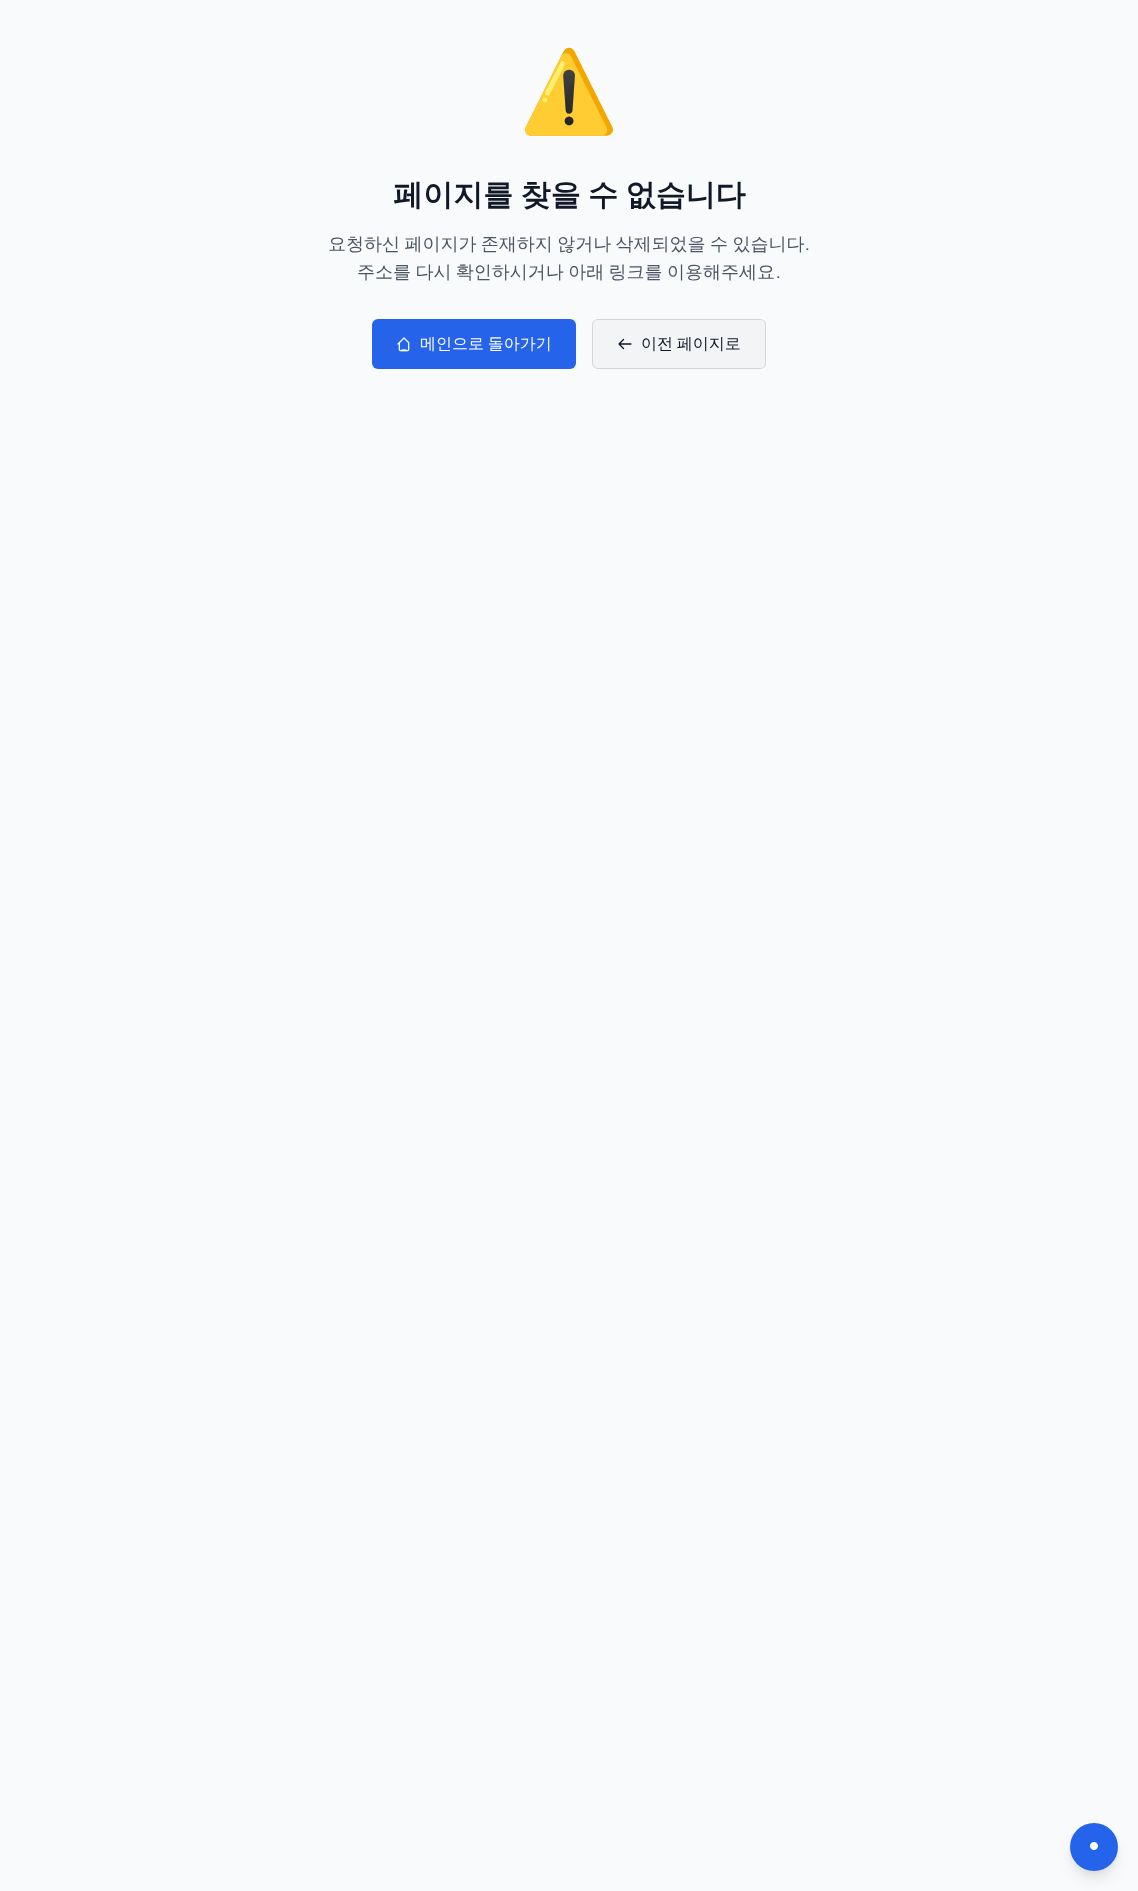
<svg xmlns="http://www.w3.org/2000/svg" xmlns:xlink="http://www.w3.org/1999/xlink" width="1138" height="1891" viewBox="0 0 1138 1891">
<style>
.cls-1{font:80px Noto Color Emoji;fill:#9ca3af}
.cls-2{font:bold 30px WenQuanYi Zen Hei;fill:#111827}
.cls-3{font:500 18px WenQuanYi Zen Hei;fill:#4b5563}
.cls-4{font:18px Roboto;fill:#4b5563}
.cls-5{font:500 16px WenQuanYi Zen Hei;fill:#ffffff}
.cls-6{font:500 16px WenQuanYi Zen Hei;fill:#111827}
</style>
<rect width="100%" height="100%" fill="#f9fafb"/>
<rect fill="#2563eb" x="372" y="319" width="204" height="50" rx="6"/>
<image xlink:href="image0.png" x="397" y="337" width="13" height="15"/>
<rect fill="#f3f4f6" stroke="#d1d5db" x="592.5" y="319.5" width="173" height="49" rx="5.5"/>
<path fill="none" stroke="#111827" stroke-width="1.3" stroke-linecap="round" stroke-linejoin="round" d="M623.5 348.5L619 344M619 344L623.5 339.5M619 344H631"/>
<rect fill="#000000" fill-opacity="0.05" filter="blur(3px)" x="1072" y="1829" width="44" height="44" rx="22"/>
<rect fill="#000000" fill-opacity="0.1" filter="blur(7.5px)" x="1073" y="1836" width="42" height="42" rx="21"/>
<circle fill="#2563eb" cx="1094" cy="1847" r="24"/>
<image xlink:href="image1.png" x="1090" y="1842" width="8" height="8"/>
<text class="cls-1" x="519" y="119">⚠️</text>
<text class="cls-2" x="393" y="205" word-spacing="-1.5">페이지를 찾을 수 없습니다</text>
<text class="cls-3" x="328" y="250" word-spacing="-1">요청하신 페이지가 존재하지 않거나 삭제되었을 수 있습니다</text>
<text class="cls-4" x="805" y="250">.</text>
<text class="cls-3" x="357" y="278" word-spacing="-1">주소를 다시 확인하시거나 아래 링크를 이용해주세요</text>
<text class="cls-4" x="776" y="278">.</text>
<text class="cls-5" x="420" y="349" word-spacing="-1">메인으로 돌아가기</text>
<text class="cls-6" x="641" y="349" word-spacing="-1">이전 페이지로</text>
</svg>
